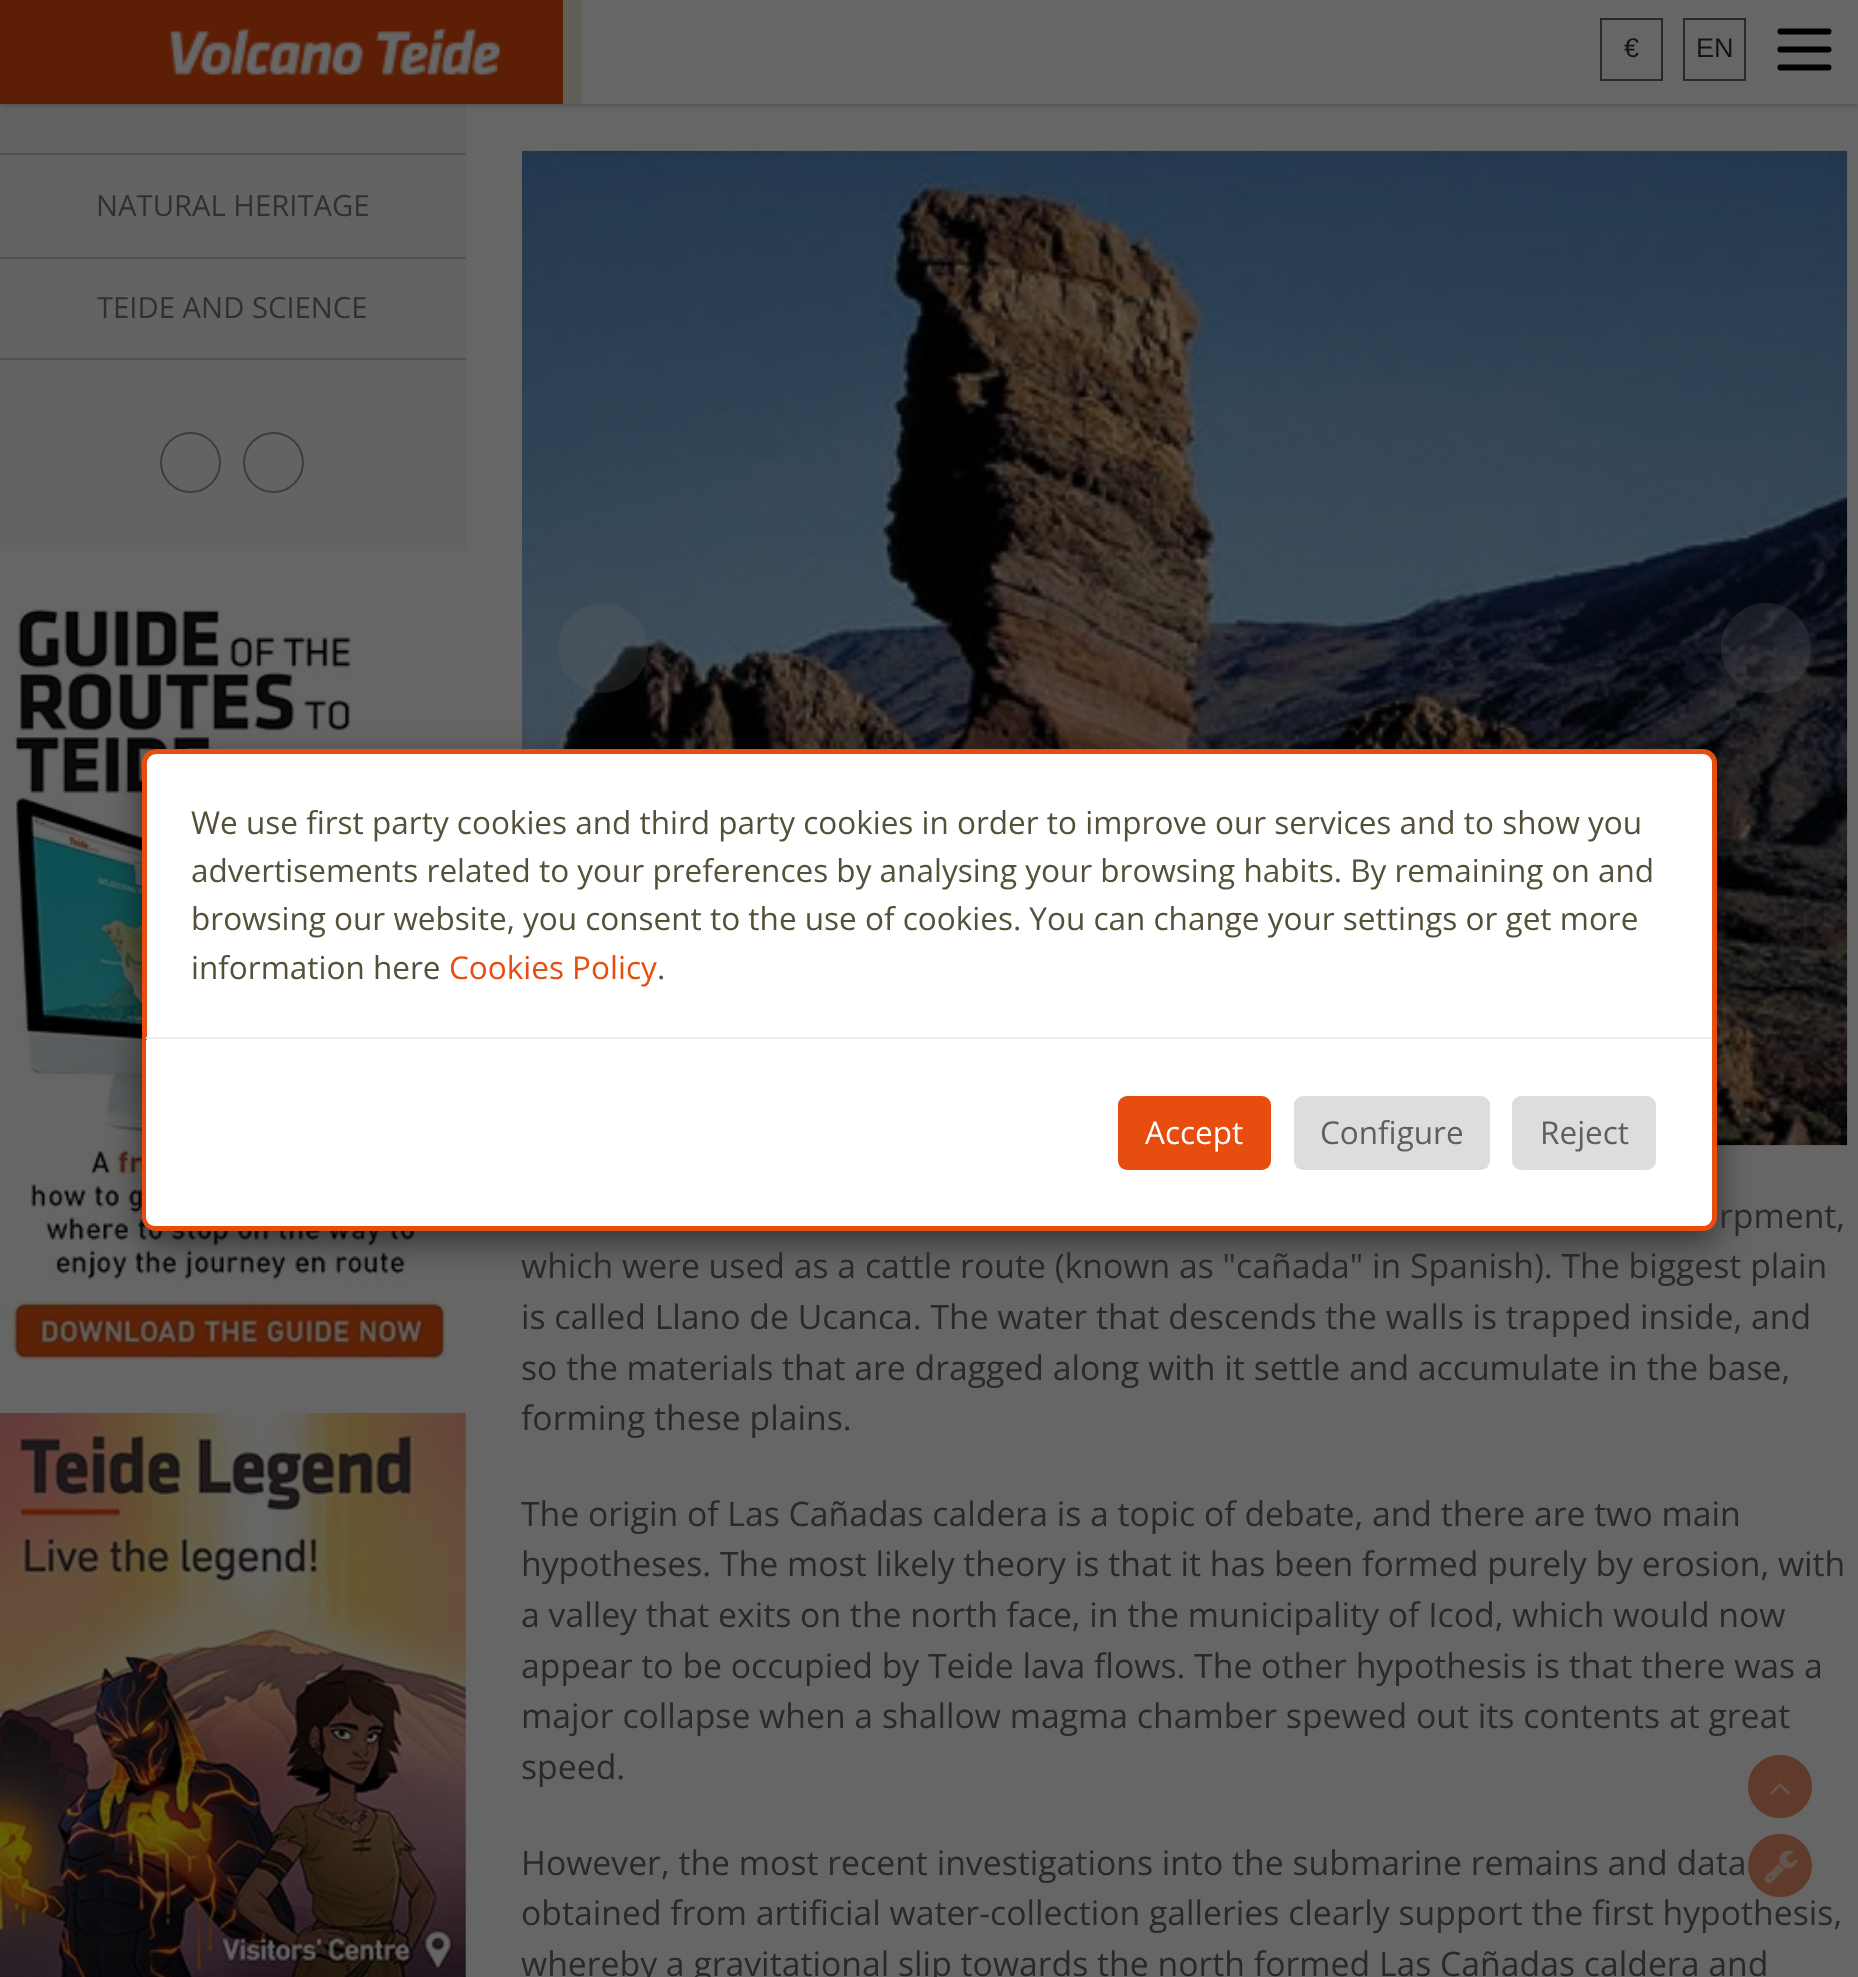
<svg xmlns="http://www.w3.org/2000/svg" xmlns:xlink="http://www.w3.org/1999/xlink" width="1858" height="1977" viewBox="0 0 1858 1977">
<style>
.cls-1{font:27px Liberation Sans;fill:#141414}
.cls-2{font:29.25px Open Sans;fill:#303030}
.cls-3{font:33.75px Open Sans;fill:#292929}
.cls-4{font:31.5px Open Sans;fill:#545139}
.cls-5{font:31.5px Open Sans;fill:#e74d0f}
.cls-6{font:31.5px Open Sans;fill:#ffffff}
.cls-7{font:31.5px Open Sans;fill:#5f5f5f}
</style>
<rect width="100%" height="100%" fill="#666666"/>
<rect fill="#636362" x="0" y="104" width="466" height="254"/>
<rect fill="#000000" fill-opacity="0.3" filter="blur(3.5px)" x="0" y="0" width="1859" height="104"/>
<rect fill="#666666" x="581" y="0" width="1277" height="104"/>
<rect fill="#5c1f06" x="0" y="0" width="563" height="104"/>
<rect fill="#605f57" x="563" y="0" width="18" height="104"/>
<image xlink:href="image0.png" x="170" y="28" width="331" height="47"/>
<rect fill="none" stroke="#292929" stroke-width="2" x="1601" y="19" width="61" height="61"/>
<rect fill="none" stroke="#292929" stroke-width="2" x="1684" y="19" width="61" height="61"/>
<path fill="none" stroke="#000000" stroke-width="6" stroke-linecap="round" stroke-linejoin="round" d="M1780.5 31.5H1828.5M1780.5 49.5H1828.5M1780.5 67.5H1828.5"/>
<rect fill="#525252" x="0" y="153" width="466" height="2"/>
<rect fill="#525252" x="0" y="257" width="466" height="2"/>
<rect fill="#525252" x="0" y="358" width="466" height="2"/>
<rect fill="#636362" x="0" y="360" width="466" height="191"/>
<circle fill="none" stroke="#3d3d3d" stroke-width="2" cx="190.5" cy="462.5" r="29.5"/>
<circle fill="none" stroke="#3d3d3d" stroke-width="2" cx="273.5" cy="462.5" r="29.5"/>
<image xlink:href="image1.png" x="0" y="606" width="458" height="759"/>
<image xlink:href="image2.png" x="0" y="1413" width="466" height="564"/>
<image xlink:href="image3.png" x="522" y="150" width="1326" height="996"/>
<circle fill="#666666" fill-opacity="0.24" cx="603" cy="648" r="45"/>
<circle fill="#666666" fill-opacity="0.24" cx="1766" cy="648" r="45"/>
<rect fill="#000000" fill-opacity="0.5" filter="blur(17px)" x="142" y="761" width="1575" height="481" rx="14"/>
<rect fill="#ffffff" stroke="#e74d0f" stroke-width="5" x="144.5" y="751.5" width="1570" height="477" rx="11.5"/>
<path fill="#ffffff" d="M146 1040H1712V1217C1712 1222 1708 1226 1703 1226H155C150 1226 146 1222 146 1217Z"/>
<rect fill="#eeeeee" x="146" y="1037" width="1566" height="2"/>
<rect fill="#e74d0f" x="1118" y="1096" width="153" height="74" rx="9"/>
<rect fill="#dddddd" x="1294" y="1096" width="196" height="74" rx="9"/>
<rect fill="#dddddd" x="1512" y="1096" width="144" height="74" rx="9"/>
<rect fill="#603b2c" stroke="#666666" stroke-width="2" x="1747" y="1754" width="66" height="65" rx="32.5"/>
<image xlink:href="image4.png" x="1770" y="1783" width="20" height="12"/>
<rect fill="#603b2c" stroke="#666666" stroke-width="2" x="1747" y="1833" width="66" height="65" rx="32.5"/>
<image xlink:href="image5.png" x="1764" y="1850" width="34" height="34"/>
<text class="cls-1" x="1624" y="57">€</text>
<text class="cls-1" x="1696" y="57">EN</text>
<text class="cls-2" x="96" y="216">NATURAL HERITAGE</text>
<text class="cls-2" x="97" y="318">TEIDE AND SCIENCE</text>
<text class="cls-3" x="1719" y="1228">rpment,</text>
<text class="cls-3"><tspan x="521" y="1278">which were used as a cattle route (known as "cañada" in Spanish). The biggest plain</tspan><tspan x="521" y="1329">is called Llano de Ucanca. The water that descends the walls is trapped inside, and</tspan><tspan x="521" y="1380">so the materials that are dragged along with it settle and accumulate in the base,</tspan><tspan x="521" y="1430">forming these plains.</tspan></text>
<text class="cls-3"><tspan x="521" y="1526">The origin of Las Cañadas caldera is a topic of debate, and there are two main</tspan><tspan x="521" y="1576">hypotheses. The most likely theory is that it has been formed purely by erosion, with</tspan><tspan x="521" y="1627">a valley that exits on the north face, in the municipality of Icod, which would now</tspan><tspan x="521" y="1678">appear to be occupied by Teide lava flows. The other hypothesis is that there was a</tspan><tspan x="521" y="1728">major collapse when a shallow magma chamber spewed out its contents at great</tspan><tspan x="521" y="1779">speed.</tspan></text>
<text class="cls-3"><tspan x="521" y="1875">However, the most recent investigations into the submarine remains and data</tspan><tspan x="521" y="1925">obtained from artificial water-collection galleries clearly support the first hypothesis,</tspan><tspan x="521" y="1976">whereby a gravitational slip towards the north formed Las Cañadas caldera and</tspan></text>
<text class="cls-4"><tspan x="191" y="834">We use first party cookies and third party cookies in order to improve our services and to show you</tspan><tspan x="191" y="882">advertisements related to your preferences by analysing your browsing habits. By remaining on and</tspan><tspan x="191" y="930">browsing our website, you consent to the use of cookies. You can change your settings or get more</tspan><tspan x="191" y="979">information here</tspan></text>
<text class="cls-5" x="449" y="979">Cookies Policy</text>
<text class="cls-4" x="657" y="979">.</text>
<text class="cls-6" x="1145" y="1144">Accept</text>
<text class="cls-7" x="1320" y="1144">Configure</text>
<text class="cls-7" x="1540" y="1144">Reject</text>
</svg>
